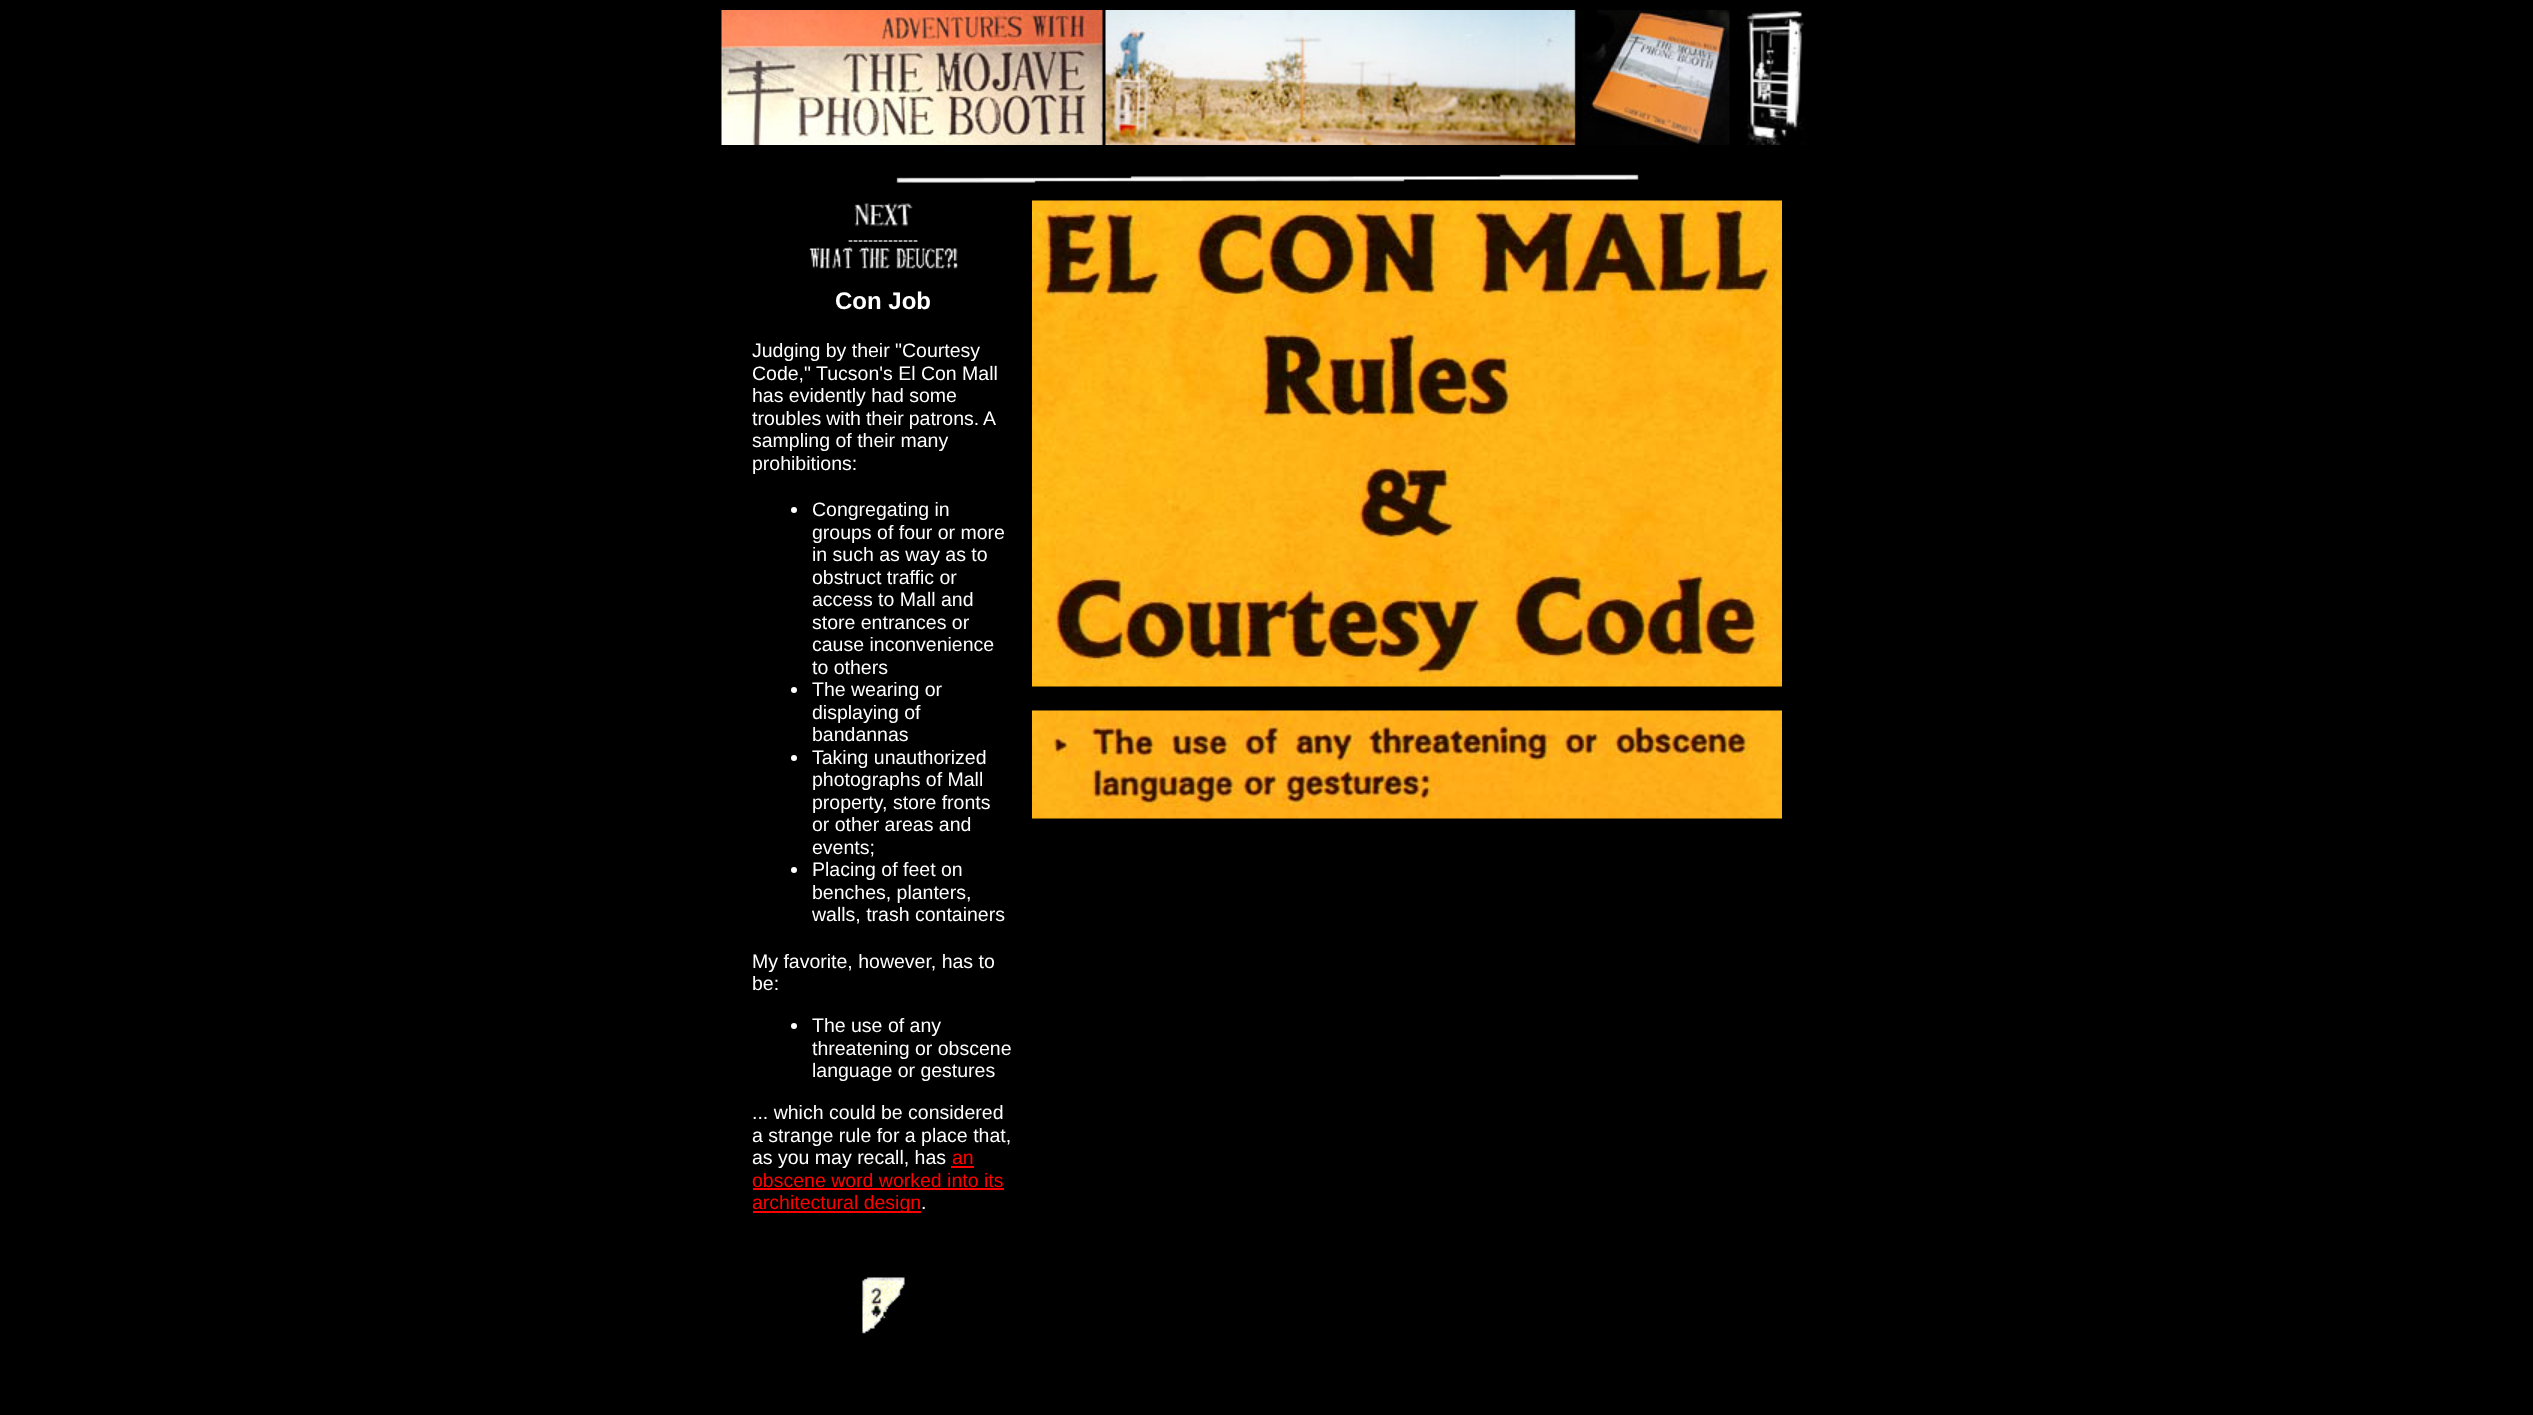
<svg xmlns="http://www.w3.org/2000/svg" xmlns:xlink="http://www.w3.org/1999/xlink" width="2533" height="1415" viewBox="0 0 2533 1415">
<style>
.cls-1{font:15px Liberation Sans;fill:#ffffff}
.cls-2{font:bold 24px Liberation Sans;fill:#ffffff}
.cls-3{font:19.5px Liberation Sans;fill:#ffffff}
.cls-4{font:19.5px Liberation Sans;fill:#ff0000}
</style>
<rect width="100%" height="100%" fill="#000000"/>
<image xlink:href="image0.png" x="721" y="10" width="1086" height="135"/>
<image xlink:href="image1.png" x="896" y="174" width="743" height="9"/>
<image xlink:href="image2.png" x="854" y="203" width="59" height="24"/>
<image xlink:href="image3.png" x="809" y="247" width="149" height="22"/>
<image xlink:href="image4.png" x="1032" y="200" width="750" height="487"/>
<image xlink:href="image5.png" x="1032" y="710" width="750" height="109"/>
<circle fill="#ffffff" cx="794" cy="510" r="3"/>
<circle fill="#ffffff" cx="794" cy="690" r="3"/>
<circle fill="#ffffff" cx="794" cy="758" r="3"/>
<circle fill="#ffffff" cx="794" cy="870" r="3"/>
<circle fill="#ffffff" cx="794" cy="1026" r="3"/>
<rect fill="#ff0000" x="951" y="1166" width="23" height="2"/>
<rect fill="#ff0000" x="753" y="1188" width="251" height="2"/>
<rect fill="#ff0000" x="753" y="1211" width="168" height="2"/>
<image xlink:href="image6.png" x="862" y="1277" width="43" height="57"/>
<text class="cls-1" x="848" y="245">--------------</text>
<text class="cls-2" x="835" y="309">Con Job</text>
<text class="cls-3"><tspan x="752" y="357">Judging by their "Courtesy</tspan><tspan x="752" y="380">Code," Tucson's El Con Mall</tspan><tspan x="752" y="402">has evidently had some</tspan><tspan x="752" y="425" word-spacing="-0.5">troubles with their patrons. A</tspan><tspan x="752" y="447">sampling of their many</tspan><tspan x="752" y="470">prohibitions:</tspan></text>
<text class="cls-3"><tspan x="812" y="516">Congregating in</tspan><tspan x="812" y="539">groups of four or more</tspan><tspan x="812" y="561">in such as way as to</tspan><tspan x="812" y="584">obstruct traffic or</tspan><tspan x="812" y="606">access to Mall and</tspan><tspan x="812" y="629">store entrances or</tspan><tspan x="812" y="651">cause inconvenience</tspan><tspan x="812" y="674">to others</tspan><tspan x="812" y="696">The wearing or</tspan><tspan x="812" y="719">displaying of</tspan><tspan x="812" y="741">bandannas</tspan><tspan x="812" y="764">Taking unauthorized</tspan><tspan x="812" y="786">photographs of Mall</tspan><tspan x="812" y="809">property, store fronts</tspan><tspan x="812" y="831">or other areas and</tspan><tspan x="812" y="854">events;</tspan><tspan x="812" y="876">Placing of feet on</tspan><tspan x="812" y="899">benches, planters,</tspan><tspan x="812" y="921">walls, trash containers</tspan></text>
<text class="cls-3"><tspan x="752" y="968">My favorite, however, has to</tspan><tspan x="752" y="990">be:</tspan></text>
<text class="cls-3"><tspan x="812" y="1032">The use of any</tspan><tspan x="812" y="1055">threatening or obscene</tspan><tspan x="812" y="1077">language or gestures</tspan></text>
<text class="cls-3"><tspan x="752" y="1119">... which could be considered</tspan><tspan x="752" y="1142">a strange rule for a place that,</tspan><tspan x="752" y="1164">as you may recall, has</tspan></text>
<text class="cls-4" x="952" y="1164">an</text>
<text class="cls-4"><tspan x="752" y="1187">obscene word worked into its</tspan><tspan x="752" y="1209">architectural design</tspan></text>
<text class="cls-3" x="921" y="1209">.</text>
</svg>
